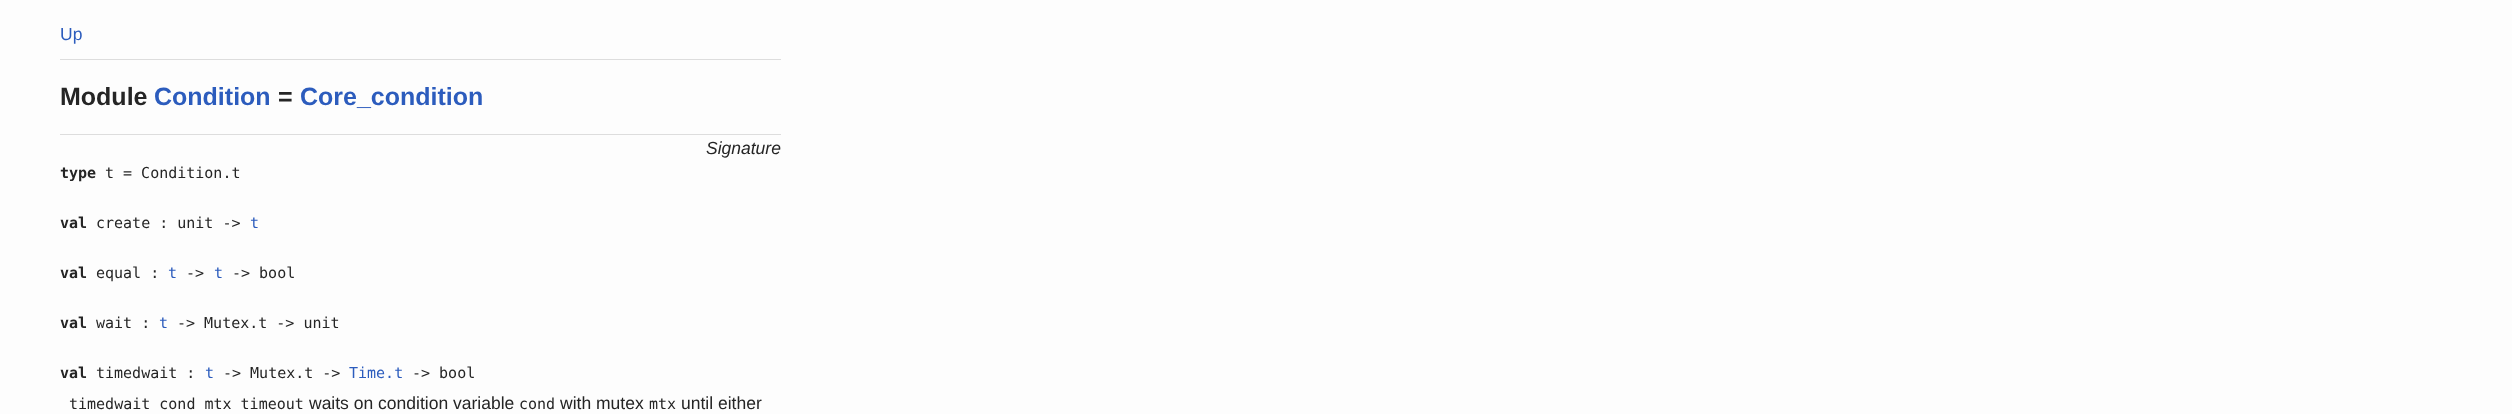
<svg xmlns="http://www.w3.org/2000/svg" xmlns:xlink="http://www.w3.org/1999/xlink" width="2512" height="414" viewBox="0 0 2512 414">
<style>
.cls-1{font:17.5px Liberation Sans;fill:#2c5cbd}
.cls-2{font:bold 25px Liberation Sans;fill:#252525}
.cls-3{font:bold 25px Liberation Sans;fill:#2c5cbd}
.cls-4{font:italic 17.5px Liberation Sans;fill:#252525}
.cls-5{font:bold 15px DejaVu Sans Mono;fill:#252525}
.cls-6{font:15px DejaVu Sans Mono;fill:#252525}
.cls-7{font:15px DejaVu Sans Mono;fill:#2c5cbd}
.cls-8{font:17.5px Liberation Sans;fill:#252525}
</style>
<rect width="100%" height="100%" fill="#fdfdfd"/>
<rect fill="#dddddd" x="60" y="59" width="721" height="1"/>
<rect fill="#dddddd" x="60" y="134" width="721" height="1"/>
<text class="cls-1" x="60" y="40">Up</text>
<text class="cls-2" x="60" y="105">Module</text>
<text class="cls-3" x="154" y="105">Condition</text>
<text class="cls-2" x="278" y="105">=</text>
<text class="cls-3" x="300" y="105">Core_condition</text>
<text class="cls-4" x="706" y="154">Signature</text>
<text class="cls-5" x="60" y="178">type</text>
<text class="cls-6" x="105" y="178">t = Condition.t</text>
<text class="cls-5" x="60" y="228">val</text>
<text class="cls-6" x="96" y="228">create : unit -&gt;</text>
<text class="cls-7" x="250" y="228">t</text>
<text class="cls-5" x="60" y="278">val</text>
<text class="cls-6" x="96" y="278">equal :</text>
<text class="cls-7" x="168" y="278">t</text>
<text class="cls-6" x="186" y="278">-&gt;</text>
<text class="cls-7" x="214" y="278">t</text>
<text class="cls-6" x="232" y="278">-&gt; bool</text>
<text class="cls-5" x="60" y="328">val</text>
<text class="cls-6" x="96" y="328">wait :</text>
<text class="cls-7" x="159" y="328">t</text>
<text class="cls-6" x="177" y="328">-&gt; Mutex.t -&gt; unit</text>
<text class="cls-5" x="60" y="378">val</text>
<text class="cls-6" x="96" y="378">timedwait :</text>
<text class="cls-7" x="205" y="378">t</text>
<text class="cls-6" x="223" y="378">-&gt; Mutex.t -&gt;</text>
<text class="cls-7" x="349" y="378">Time.t</text>
<text class="cls-6" x="412" y="378">-&gt; bool</text>
<text class="cls-6" x="69" y="409">timedwait cond mtx timeout</text>
<text class="cls-8" x="309" y="409">waits on condition variable</text>
<text class="cls-6" x="519" y="409">cond</text>
<text class="cls-8" x="560" y="409">with mutex</text>
<text class="cls-6" x="649" y="409">mtx</text>
<text class="cls-8" x="681" y="409">until either</text>
</svg>
